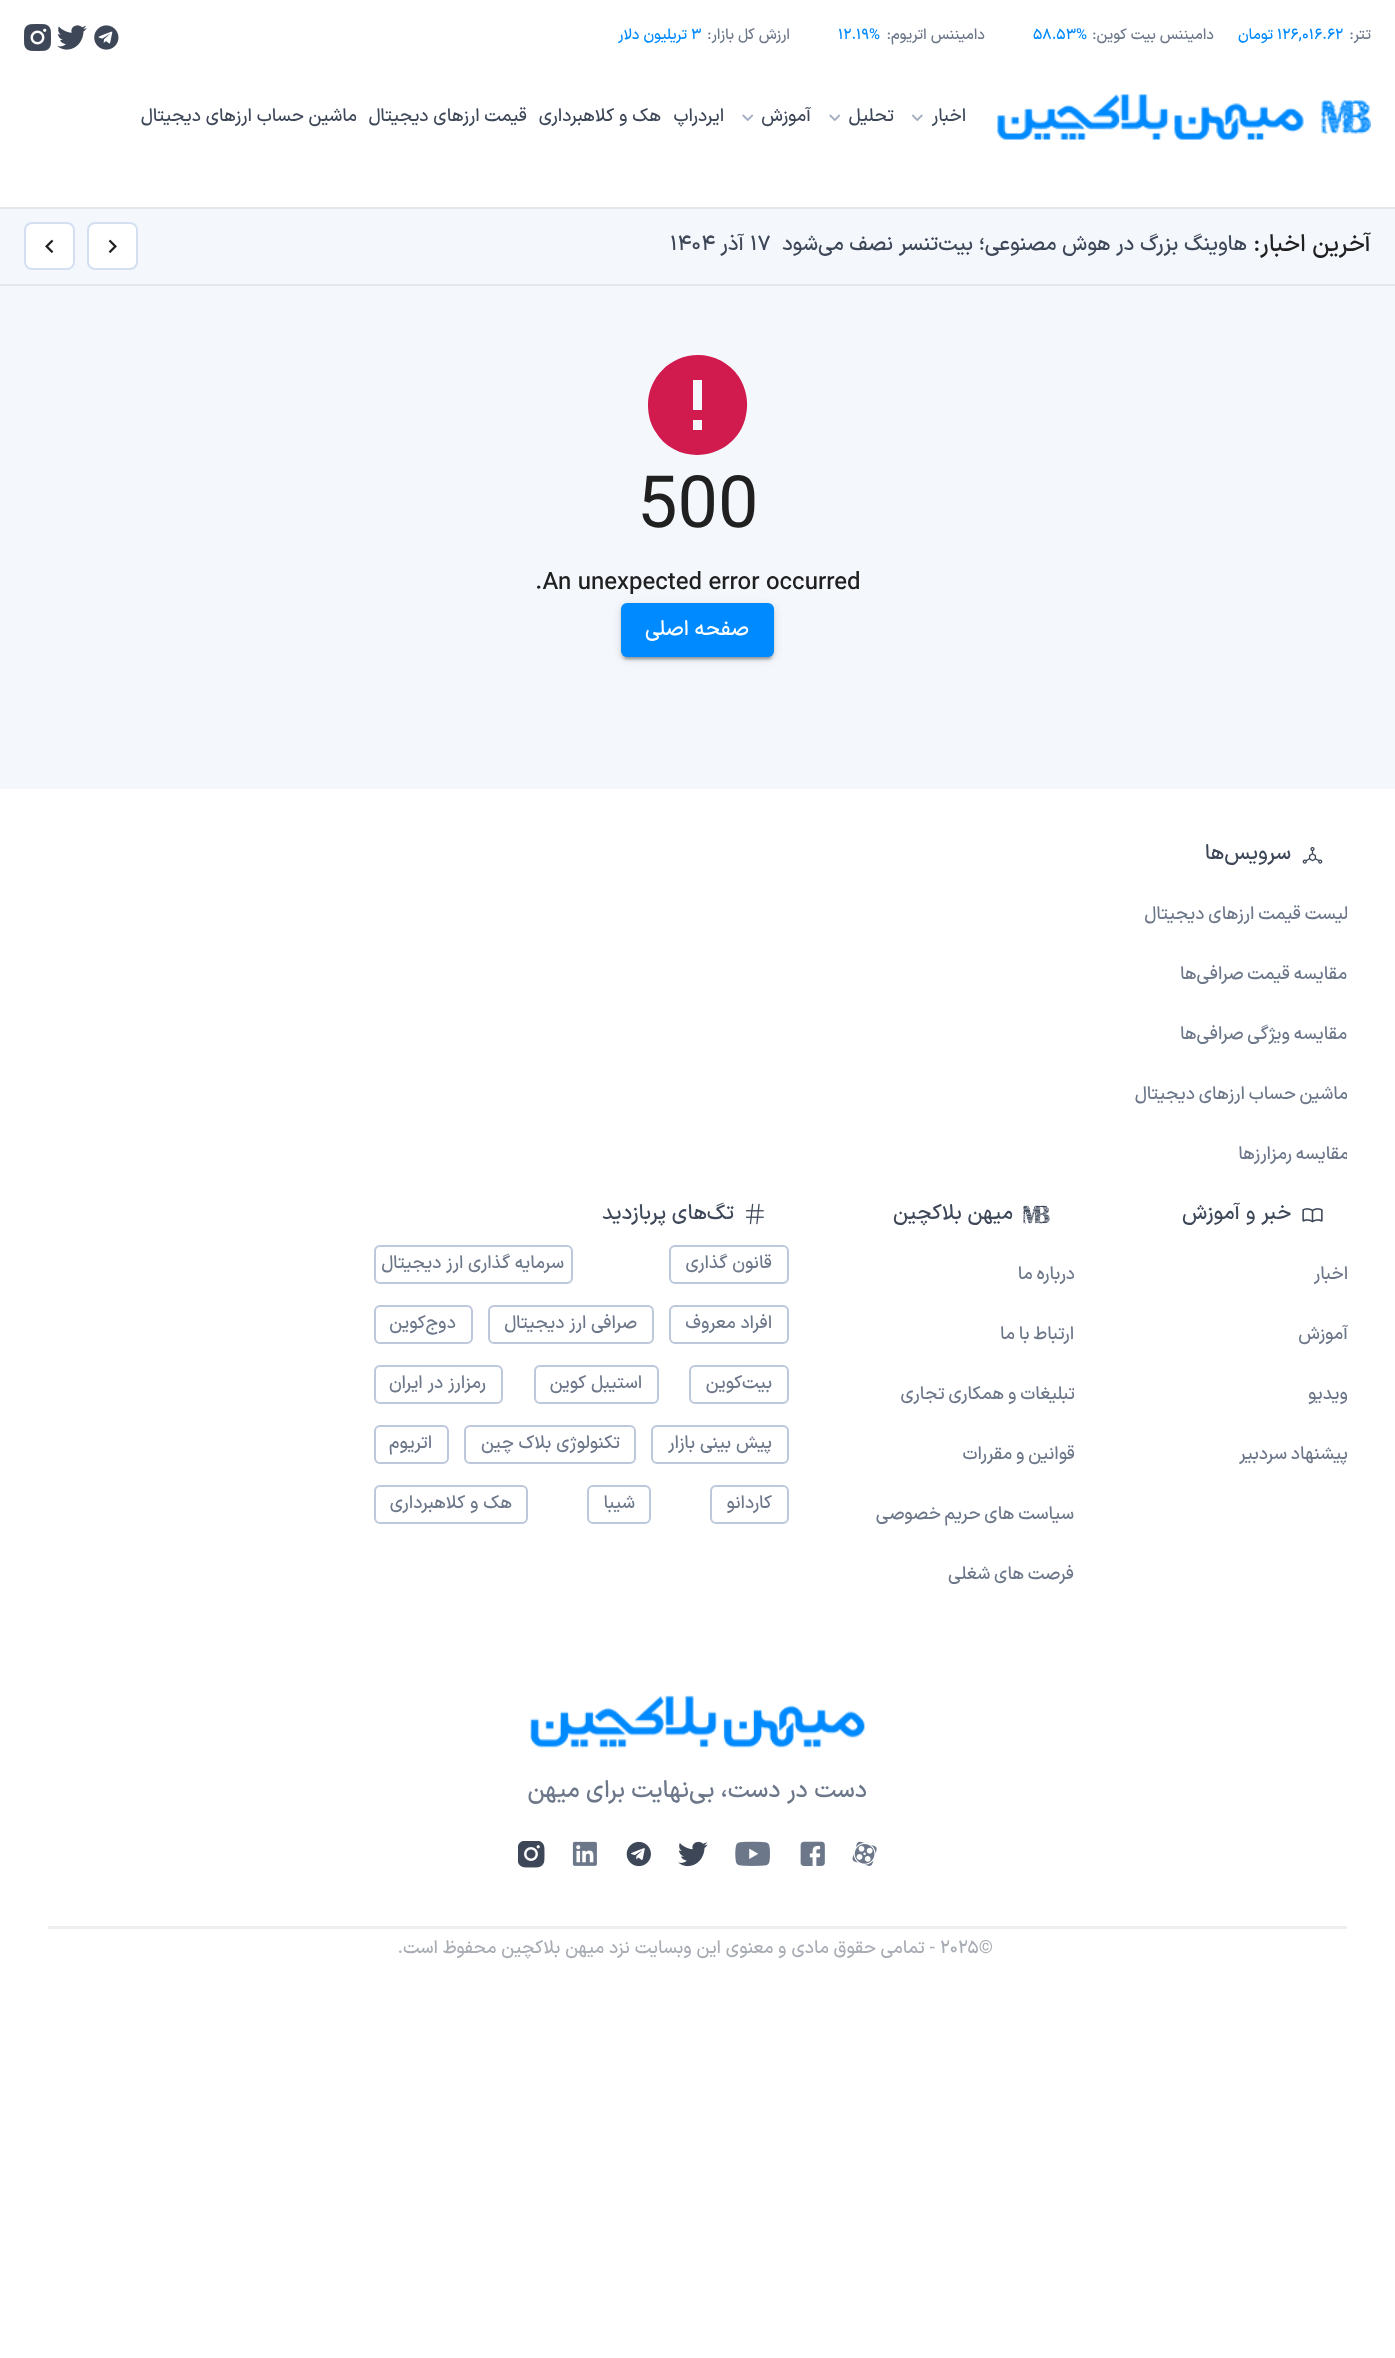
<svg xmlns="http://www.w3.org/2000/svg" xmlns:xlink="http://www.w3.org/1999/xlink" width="1395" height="2358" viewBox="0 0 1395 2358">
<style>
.cls-1{font:500 15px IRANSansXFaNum;direction:rtl;fill:#6d778a}
.cls-2{font:500 15px IRANSansXFaNum;fill:#008aff}
.cls-3{font:500 15px IRANSansXFaNum;direction:rtl;fill:#008aff}
.cls-4{font:500 18px IRANSansXFaNum;direction:rtl;fill:#3d4758}
.cls-5{font:500 24px IRANSansXFaNum;direction:rtl;fill:#202021}
.cls-6{font:500 21px IRANSansXFaNum;direction:rtl;fill:#3d4758}
.cls-7{font:500 21px IRANSansXFaNum;fill:#3d4758}
.cls-8{font:72px Roboto;fill:#202021}
.cls-9{font:500 24px IRANSansXFaNum;fill:#202021}
.cls-10{font:500 21px IRANSansXFaNum;direction:rtl;fill:#ffffff}
.cls-11{font:500 18px IRANSansXFaNum;letter-spacing:0.2px;direction:rtl;fill:#6d778a}
.cls-12{font:500 18px IRANSansXFaNum;direction:rtl;fill:#6d778a}
.cls-13{font:500 24px IRANSansXFaNum;direction:rtl;fill:#6d778a}
.cls-14{font:500 18px IRANSansXFaNum;fill:#a8acb4}
.cls-15{font:500 18px IRANSansXFaNum;direction:rtl;fill:#a8acb4}
</style>
<defs>
<clipPath id="clip1"><rect x="48" y="902" width="1299" height="27"/></clipPath>
<clipPath id="clip2"><rect x="48" y="962" width="1299" height="27"/></clipPath>
<clipPath id="clip3"><rect x="48" y="1022" width="1299" height="27"/></clipPath>
<clipPath id="clip4"><rect x="48" y="1082" width="1299" height="27"/></clipPath>
<clipPath id="clip5"><rect x="48" y="1142" width="1299" height="27"/></clipPath>
<clipPath id="clip6"><rect x="1074" y="1382" width="273" height="27"/></clipPath>
<clipPath id="clip7"><rect x="1074" y="1442" width="273" height="27"/></clipPath>
<clipPath id="clip8"><rect x="789" y="1262" width="285" height="27"/></clipPath>
<clipPath id="clip9"><rect x="789" y="1322" width="285" height="27"/></clipPath>
<clipPath id="clip10"><rect x="789" y="1382" width="285" height="27"/></clipPath>
<clipPath id="clip11"><rect x="789" y="1442" width="285" height="27"/></clipPath>
<clipPath id="clip12"><rect x="789" y="1502" width="285" height="27"/></clipPath>
<clipPath id="clip13"><rect x="789" y="1562" width="285" height="27"/></clipPath>
</defs>
<rect width="100%" height="100%" fill="#ffffff"/>
<image xlink:href="image0.png" x="94" y="25" width="25" height="25"/>
<image xlink:href="image1.png" x="57" y="25" width="30" height="25"/>
<image xlink:href="image2.png" x="24" y="24" width="27" height="27"/>
<image xlink:href="image3.png" x="997" y="94" width="374" height="46"/>
<image xlink:href="image4.png" x="911" y="114" width="12" height="8"/>
<image xlink:href="image5.png" x="829" y="114" width="12" height="8"/>
<image xlink:href="image5.png" x="742" y="114" width="12" height="8"/>
<rect fill="#f4f8fc" x="0" y="209" width="1395" height="580"/>
<rect fill="#e5e7eb" x="0" y="207" width="1395" height="2"/>
<rect fill="#e5e7eb" x="0" y="284" width="1395" height="2"/>
<rect fill="#ffffff" stroke="#d4dff2" stroke-width="2" x="88" y="223" width="49" height="46" rx="7"/>
<image xlink:href="image6.png" x="108" y="239" width="9" height="14"/>
<rect fill="#ffffff" stroke="#d4dff2" stroke-width="2" x="25" y="223" width="49" height="46" rx="7"/>
<image xlink:href="image7.png" x="45" y="239" width="9" height="14"/>
<path fill="#d11b4f" d="M702 410H693V380H702ZM702 430H693V420H702ZM698 355C670 355 648 378 648 405C648 414 650 423 655 431C678 470 738 459 746 415C749 402 746 388 739 377C730 363 714 355 698 355Z"/>
<rect fill="#000000" fill-opacity="0.12" filter="blur(4px)" x="621" y="605" width="153" height="54" rx="6"/>
<rect fill="#000000" fill-opacity="0.14" filter="blur(1.5px)" x="621" y="606" width="153" height="54" rx="6"/>
<rect fill="#000000" fill-opacity="0.2" filter="blur(1px)" x="624" y="611" width="147" height="48" rx="3"/>
<rect fill="#008aff" x="621" y="603" width="153" height="54" rx="6"/>
<image xlink:href="image8.png" x="1302" y="847" width="21" height="17"/>
<image xlink:href="image9.png" x="1302" y="1208" width="21" height="15"/>
<image xlink:href="image10.png" x="1023" y="1205" width="27" height="19"/>
<image xlink:href="image11.png" x="746" y="1203" width="18" height="22"/>
<rect fill="none" stroke="#bdc8dc" stroke-width="2" x="670" y="1246" width="118" height="37" rx="5"/>
<rect fill="none" stroke="#bdc8dc" stroke-width="2" x="375" y="1246" width="197" height="37" rx="5"/>
<rect fill="none" stroke="#bdc8dc" stroke-width="2" x="670" y="1306" width="118" height="37" rx="5"/>
<rect fill="none" stroke="#bdc8dc" stroke-width="2" x="489" y="1306" width="164" height="37" rx="5"/>
<rect fill="none" stroke="#bdc8dc" stroke-width="2" x="375" y="1306" width="97" height="37" rx="5"/>
<rect fill="none" stroke="#bdc8dc" stroke-width="2" x="690" y="1366" width="98" height="37" rx="5"/>
<rect fill="none" stroke="#bdc8dc" stroke-width="2" x="535" y="1366" width="123" height="37" rx="5"/>
<rect fill="none" stroke="#bdc8dc" stroke-width="2" x="375" y="1366" width="127" height="37" rx="5"/>
<rect fill="none" stroke="#bdc8dc" stroke-width="2" x="652" y="1426" width="136" height="37" rx="5"/>
<rect fill="none" stroke="#bdc8dc" stroke-width="2" x="465" y="1426" width="170" height="37" rx="5"/>
<rect fill="none" stroke="#bdc8dc" stroke-width="2" x="375" y="1426" width="73" height="37" rx="5"/>
<rect fill="none" stroke="#bdc8dc" stroke-width="2" x="711" y="1486" width="77" height="37" rx="5"/>
<rect fill="none" stroke="#bdc8dc" stroke-width="2" x="588" y="1486" width="62" height="37" rx="5"/>
<rect fill="none" stroke="#bdc8dc" stroke-width="2" x="375" y="1486" width="152" height="37" rx="5"/>
<image xlink:href="image12.png" x="530" y="1695" width="335" height="53"/>
<image xlink:href="image13.png" x="852" y="1841" width="25" height="25"/>
<image xlink:href="image14.png" x="800" y="1841" width="25" height="25"/>
<image xlink:href="image15.png" x="735" y="1841" width="35" height="25"/>
<image xlink:href="image16.png" x="678" y="1841" width="30" height="26"/>
<image xlink:href="image17.png" x="626" y="1841" width="25" height="26"/>
<image xlink:href="image18.png" x="572" y="1841" width="25" height="25"/>
<image xlink:href="image19.png" x="518" y="1841" width="27" height="27"/>
<rect fill="#edeff1" x="48" y="1926" width="1299" height="3"/>
<text class="cls-1" x="1371" y="39">تتر:</text>
<text class="cls-2" x="1277" y="39">126,016.62</text>
<text class="cls-3" x="1273" y="39">تومان</text>
<text class="cls-1" x="1214" y="39">دامیننس بیت کوین:</text>
<text class="cls-2" x="1033" y="39">58.53%</text>
<text class="cls-1" x="985" y="39">دامیننس اتریوم:</text>
<text class="cls-2" x="838" y="39">12.19%</text>
<text class="cls-1" x="790" y="39">ارزش کل بازار:</text>
<text class="cls-2" x="691" y="39">3</text>
<text class="cls-3" x="687" y="39">تریلیون دلار</text>
<text class="cls-4" x="966" y="121">اﺧﺒﺎر</text>
<text class="cls-4" x="894" y="121">تحلیل</text>
<text class="cls-4" x="811" y="121">آموزش</text>
<text class="cls-4" x="724" y="121">ایردراپ</text>
<text class="cls-4" x="661" y="121">هک و کلاهبرداری</text>
<text class="cls-4" x="527" y="121">قیمت ارزهای دیجیتال</text>
<text class="cls-4" x="357" y="121">ماشین حساب ارزهای دیجیتال</text>
<text class="cls-5" x="1371" y="251">آخرین اخبار:</text>
<text class="cls-6" x="1247" y="250">هاوینگ بزرگ در هوش مصنوعی؛ بیت‌تنسر نصف می‌شود</text>
<text class="cls-7" x="750" y="250">17</text>
<text class="cls-6" x="744" y="250">آذر</text>
<text class="cls-7" x="670" y="250">1404</text>
<text class="cls-8" x="637" y="527">500</text>
<text class="cls-9" x="535" y="589">.An unexpected error occurred</text>
<text class="cls-10" x="749" y="635">صفحه اصلی</text>
<text class="cls-6" x="1291" y="859">سرویس‌ها</text>
<g clip-path="url(#clip1)">
<text class="cls-11" x="1348" y="919" word-spacing="-1">لیست قیمت ارزهای دیجیتال</text>
</g>
<g clip-path="url(#clip2)">
<text class="cls-11" x="1347" y="979" word-spacing="-1">مقایسه قیمت صرافی‌ها</text>
</g>
<g clip-path="url(#clip3)">
<text class="cls-11" x="1347" y="1039" word-spacing="-1">مقایسه ویژگی صرافی‌ها</text>
</g>
<g clip-path="url(#clip4)">
<text class="cls-11" x="1348" y="1099" word-spacing="-1">ماشین حساب ارزهای دیجیتال</text>
</g>
<g clip-path="url(#clip5)">
<text class="cls-11" x="1349" y="1159" word-spacing="-1">مقایسه رمزارز‌ها</text>
</g>
<text class="cls-6" x="1291" y="1219">خبر و آموزش</text>
<text class="cls-11" x="1348" y="1279">اخبار</text>
<text class="cls-11" x="1348" y="1339">آموزش</text>
<g clip-path="url(#clip6)">
<text class="cls-11" x="1348" y="1399">ویدیو</text>
</g>
<g clip-path="url(#clip7)">
<text class="cls-11" x="1348" y="1459" word-spacing="-1">پیشنهاد سردبیر</text>
</g>
<text class="cls-6" x="1013" y="1219">میهن بلاکچین</text>
<g clip-path="url(#clip8)">
<text class="cls-11" x="1075" y="1279" word-spacing="-1">درباره ما</text>
</g>
<g clip-path="url(#clip9)">
<text class="cls-11" x="1074" y="1339" word-spacing="-1">ارتباط با ما</text>
</g>
<g clip-path="url(#clip10)">
<text class="cls-11" x="1075" y="1399" word-spacing="-1">تبلیغات و همکاری تجاری</text>
</g>
<g clip-path="url(#clip11)">
<text class="cls-11" x="1075" y="1459" word-spacing="-1">قوانین و مقررات</text>
</g>
<g clip-path="url(#clip12)">
<text class="cls-11" x="1074" y="1519" word-spacing="-1">سیاست های حریم خصوصی</text>
</g>
<g clip-path="url(#clip13)">
<text class="cls-11" x="1074" y="1579" word-spacing="-1">فرصت های شغلی</text>
</g>
<text class="cls-6" x="734" y="1219">تگ‌های پربازدید</text>
<text class="cls-12" x="772" y="1268">قانون گذاری</text>
<text class="cls-12" x="564" y="1268">سرمایه‌ گذاری ارز دیجیتال</text>
<text class="cls-12" x="772" y="1328">افراد معروف</text>
<text class="cls-12" x="637" y="1328">صرافی ارز دیجیتال</text>
<text class="cls-12" x="456" y="1328">دوج‌کوین</text>
<text class="cls-12" x="772" y="1388">بیت‌کوین</text>
<text class="cls-12" x="642" y="1388">استیبل کوین</text>
<text class="cls-12" x="486" y="1388">رمزارز در ایران</text>
<text class="cls-12" x="772" y="1448">پیش بینی بازار</text>
<text class="cls-12" x="620" y="1448">تکنولوژی بلاک چین</text>
<text class="cls-12" x="432" y="1448">اتریوم</text>
<text class="cls-12" x="772" y="1508">‌کاردانو</text>
<text class="cls-12" x="635" y="1508">شیبا</text>
<text class="cls-12" x="512" y="1508">هک و کلاهبرداری</text>
<text class="cls-13" x="867" y="1797">دست در دست، بی‌نهایت برای میهن</text>
<text class="cls-14" x="940" y="1953">2025©</text>
<text class="cls-15" x="935" y="1953">- تمامی حقوق مادی و معنوی این وبسایت نزد میهن بلاکچین محفوظ است.</text>
</svg>
